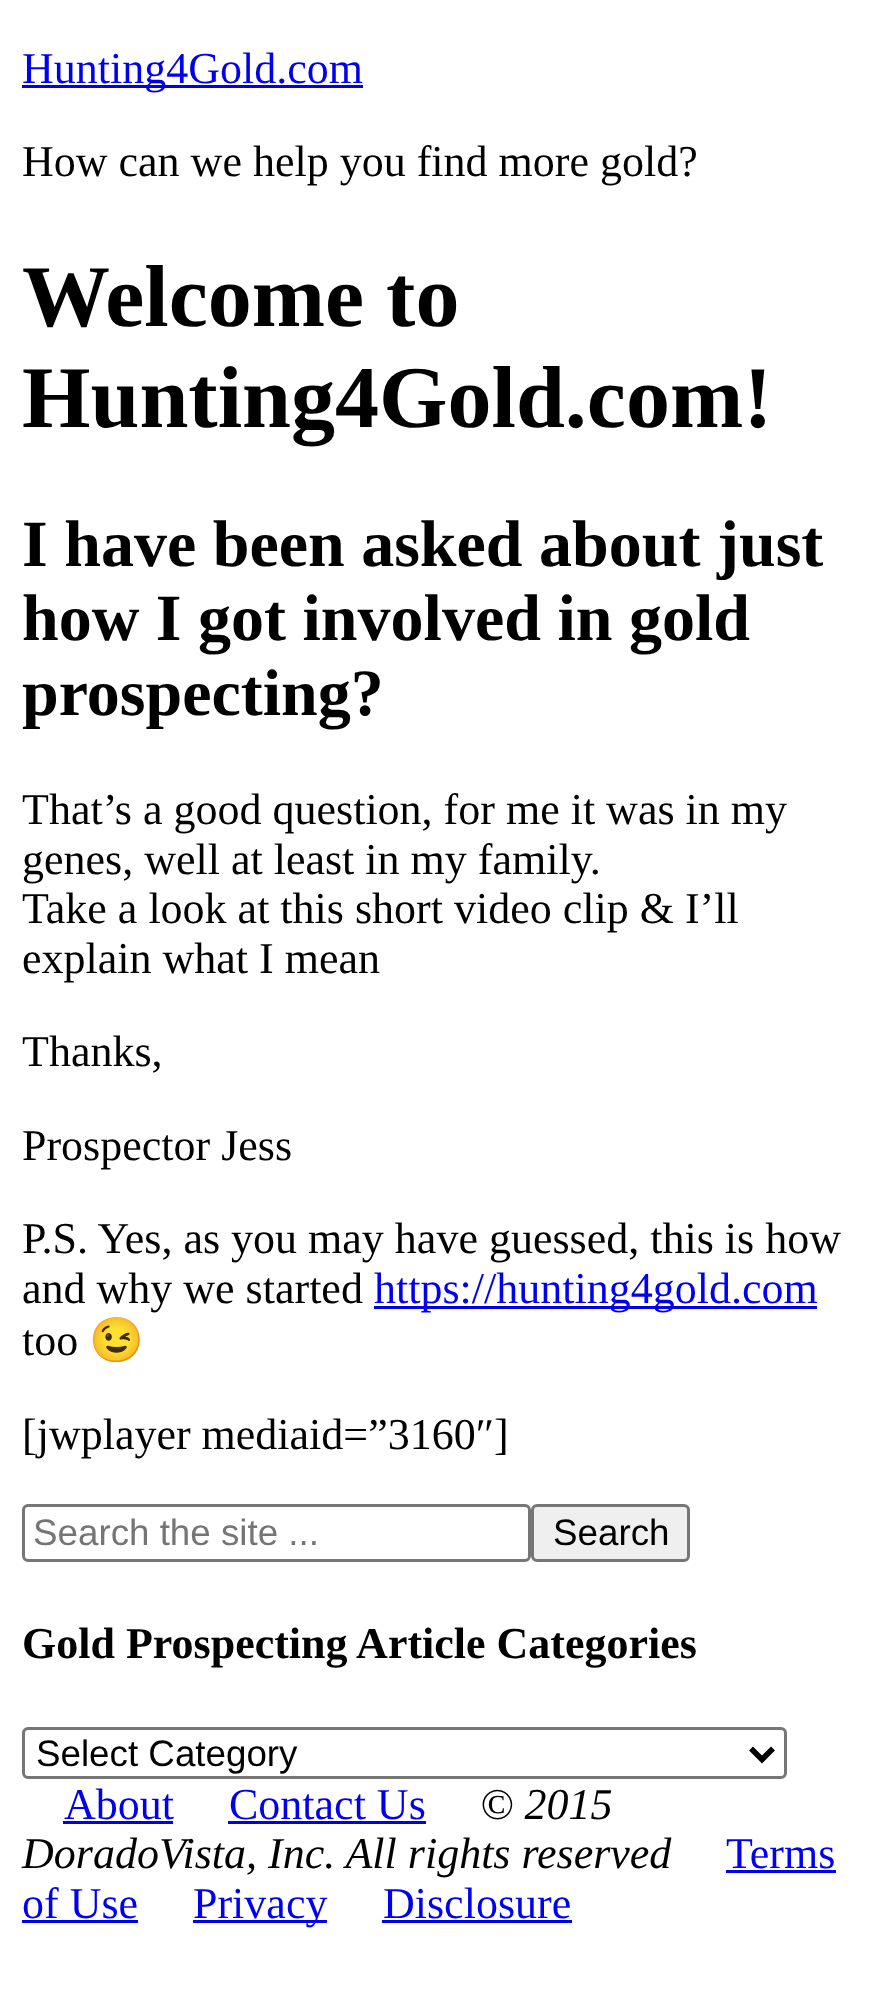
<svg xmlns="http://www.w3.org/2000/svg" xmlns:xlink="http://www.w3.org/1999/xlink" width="871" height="1989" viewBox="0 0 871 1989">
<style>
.cls-1{font:44px Liberation Serif;fill:#0000ee}
.cls-2{font:44px Liberation Serif;fill:#000000}
.cls-3{font:bold 88px Liberation Serif;fill:#000000}
.cls-4{font:bold 66px Liberation Serif;fill:#000000}
.cls-5{font:44px Noto Color Emoji;fill:#000000}
.cls-6{font:36.75px Liberation Sans;fill:#757575}
.cls-7{font:36.75px Liberation Sans;fill:#000000}
.cls-8{font:bold 44px Liberation Serif;fill:#000000}
.cls-9{font:italic 44px Liberation Serif;fill:#000000}
</style>
<rect width="100%" height="100%" fill="#ffffff"/>
<rect fill="#0000ee" x="22" y="85" width="341" height="3"/>
<rect fill="#0000ee" x="374" y="1306" width="443" height="3"/>
<rect fill="none" stroke="#767676" stroke-width="3" x="23.5" y="1505.5" width="506" height="55" rx="4.5"/>
<rect fill="#efefef" stroke="#767676" stroke-width="3" x="532.5" y="1505.5" width="156" height="55" rx="4.5"/>
<rect fill="none" stroke="#767676" stroke-width="3" x="23.5" y="1728.5" width="762" height="49" rx="4.5"/>
<path fill="none" stroke="#000000" stroke-width="5.5" d="M751 1748.5L762 1759.5L773 1748.5"/>
<rect fill="#0000ee" x="63" y="1821" width="110" height="3"/>
<rect fill="#0000ee" x="228" y="1821" width="198" height="3"/>
<rect fill="#0000ee" x="726" y="1870" width="110" height="3"/>
<rect fill="#0000ee" x="22" y="1920" width="116" height="3"/>
<rect fill="#0000ee" x="193" y="1920" width="134" height="3"/>
<rect fill="#0000ee" x="382" y="1920" width="190" height="3"/>
<text class="cls-1" x="22" y="83">Hunting4Gold.com</text>
<text class="cls-2" x="22" y="176">How can we help you find more gold?</text>
<text class="cls-3"><tspan x="22" y="326">Welcome to</tspan><tspan x="22" y="427">Hunting4Gold.com!</tspan></text>
<text class="cls-4"><tspan x="22" y="566">I have been asked about just</tspan><tspan x="22" y="640">how I got involved in gold</tspan><tspan x="22" y="715">prospecting?</tspan></text>
<text class="cls-2"><tspan x="22" y="824">That’s a good question, for me it was in my</tspan><tspan x="22" y="874">genes, well at least in my family.</tspan><tspan x="22" y="923">Take a look at this short video clip &amp; I’ll</tspan><tspan x="22" y="973">explain what I mean</tspan></text>
<text class="cls-2" x="22" y="1066">Thanks,</text>
<text class="cls-2" x="22" y="1160">Prospector Jess</text>
<text class="cls-2"><tspan x="22" y="1253">P.S. Yes, as you may have guessed, this is how</tspan><tspan x="22" y="1303">and why we started</tspan></text>
<text class="cls-1" x="374" y="1303">https://hunting4gold.com</text>
<text class="cls-2" x="22" y="1355">too</text>
<text class="cls-5" x="89" y="1355">😉</text>
<text class="cls-2" x="22" y="1449">[jwplayer mediaid=”3160″]</text>
<text class="cls-6" x="33" y="1545">Search the site ...</text>
<text class="cls-7" x="553" y="1545">Search</text>
<text class="cls-8" x="22" y="1658">Gold Prospecting Article Categories</text>
<text class="cls-7" x="36" y="1766">Select Category</text>
<text class="cls-1" x="64" y="1819">About</text>
<text class="cls-1" x="229" y="1819">Contact Us</text>
<text class="cls-9" x="480" y="1819">© 2015</text>
<text class="cls-9" x="22" y="1868">DoradoVista, Inc. All rights reserved</text>
<text class="cls-1" x="726" y="1868">Terms</text>
<text class="cls-1" x="22" y="1918">of Use</text>
<text class="cls-1" x="193" y="1918">Privacy</text>
<text class="cls-1" x="383" y="1918">Disclosure</text>
</svg>
